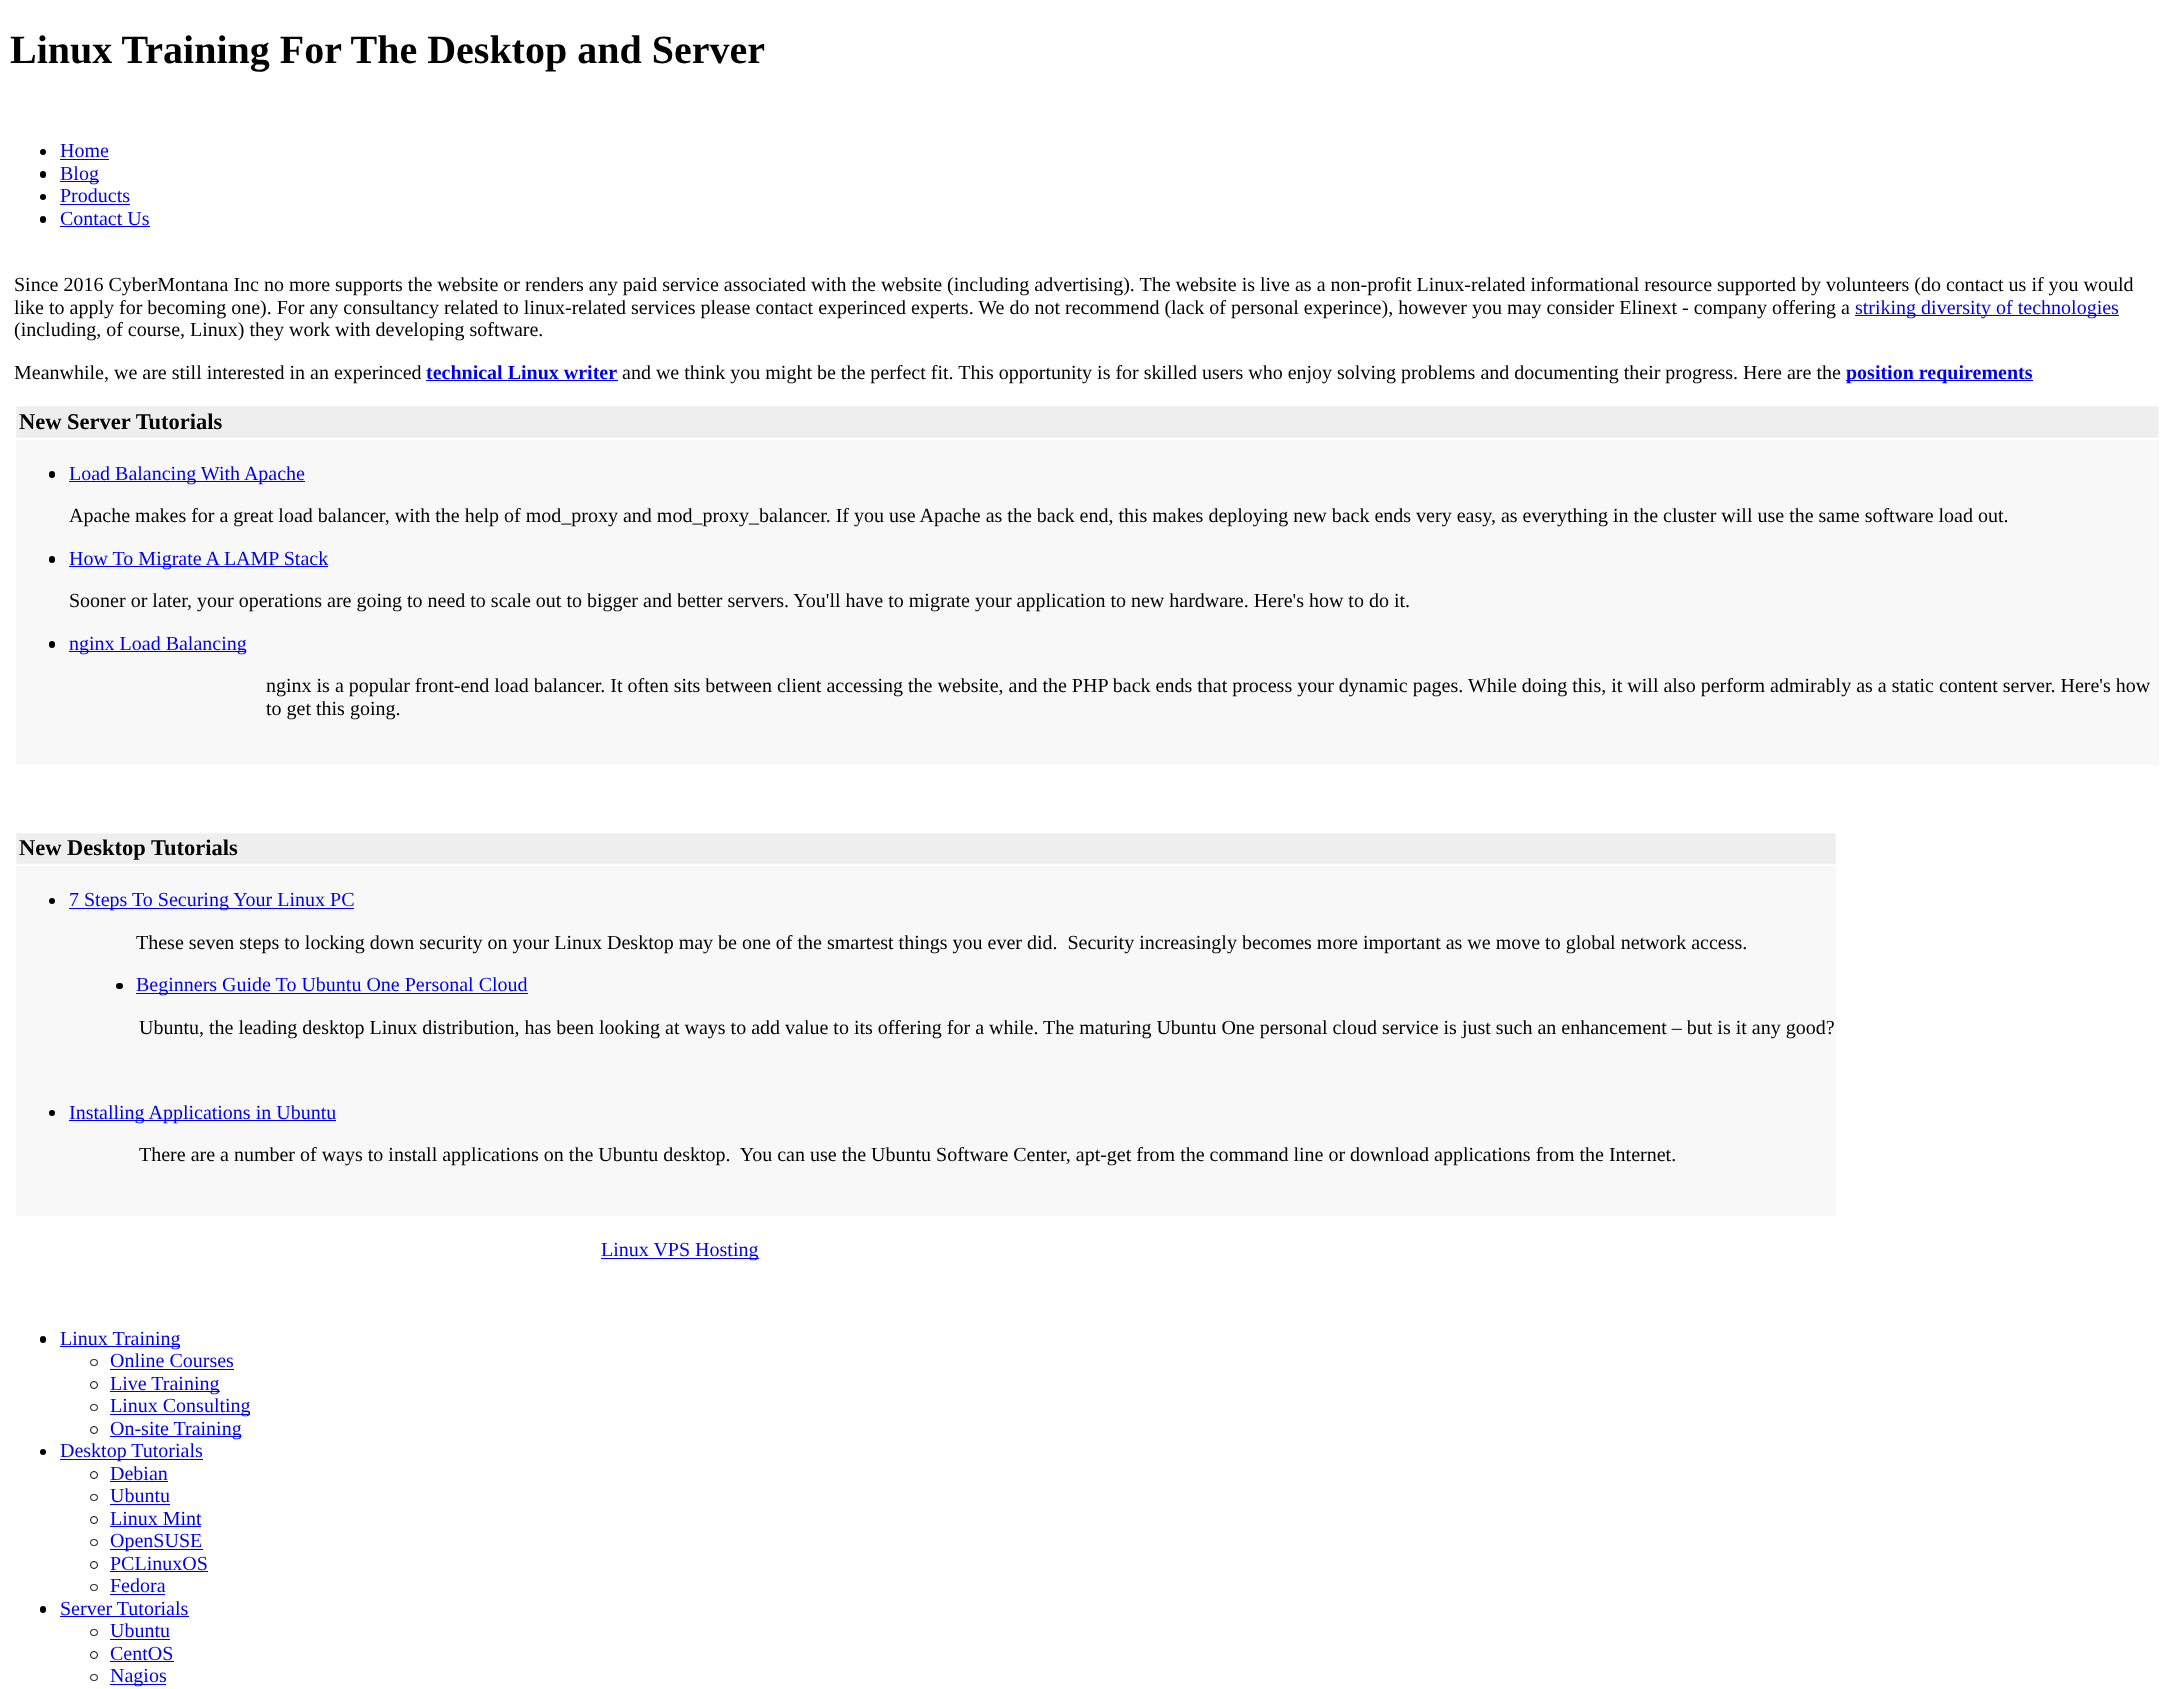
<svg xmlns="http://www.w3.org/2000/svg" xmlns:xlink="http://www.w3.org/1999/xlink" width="2175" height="1689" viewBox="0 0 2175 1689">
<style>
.cls-1{font:bold 40px Liberation Serif;fill:#000000}
.cls-2{font:20px Liberation Serif;fill:#0000ee}
.cls-3{font:20px Liberation Serif;fill:#000000}
.cls-4{font:bold 20px Liberation Serif;fill:#0000ee}
.cls-5{font:bold 22.5px Liberation Serif;fill:#000000}
</style>
<rect width="100%" height="100%" fill="#ffffff"/>
<circle fill="#000000" cx="43" cy="152" r="3"/>
<rect fill="#0000ee" x="60" y="159" width="49" height="1"/>
<rect fill="#000000" x="40" y="171" width="6" height="7" rx="3"/>
<rect fill="#0000ee" x="60" y="181" width="39" height="1"/>
<circle fill="#000000" cx="43" cy="197" r="3"/>
<rect fill="#0000ee" x="60" y="204" width="70" height="1"/>
<rect fill="#000000" x="40" y="216" width="6" height="7" rx="3"/>
<rect fill="#0000ee" x="60" y="226" width="90" height="1"/>
<rect fill="#0000ee" x="1855" y="315" width="264" height="1"/>
<rect fill="#0000ee" x="426" y="380" width="192" height="1"/>
<rect fill="#0000ee" x="1846" y="380" width="187" height="1"/>
<rect fill="#eeeeee" stroke="#f3f3f3" x="16.5" y="406.5" width="2142" height="31"/>
<rect fill="#f8f8f8" x="16" y="440" width="2143" height="325"/>
<rect fill="#000000" x="49" y="471" width="6" height="7" rx="3"/>
<rect fill="#0000ee" x="69" y="481" width="236" height="1"/>
<rect fill="#000000" x="49" y="556" width="6" height="7" rx="3"/>
<rect fill="#0000ee" x="69" y="566" width="259" height="1"/>
<rect fill="#000000" x="49" y="641" width="6" height="7" rx="3"/>
<rect fill="#0000ee" x="69" y="651" width="177" height="1"/>
<rect fill="#eeeeee" stroke="#f3f3f3" x="16.5" y="833.5" width="1819" height="30"/>
<rect fill="#f8f8f8" x="16" y="866" width="1820" height="350"/>
<circle fill="#000000" cx="52" cy="901" r="3"/>
<rect fill="#0000ee" x="69" y="908" width="285" height="1"/>
<rect fill="#000000" x="116" y="983" width="7" height="6" rx="3"/>
<rect fill="#0000ee" x="136" y="993" width="392" height="1"/>
<circle fill="#000000" cx="52" cy="1113" r="3"/>
<rect fill="#0000ee" x="69" y="1120" width="267" height="1"/>
<rect fill="#0000ee" x="601" y="1258" width="158" height="1"/>
<rect fill="#000000" x="40" y="1336" width="6" height="7" rx="3"/>
<rect fill="#0000ee" x="60" y="1346" width="120" height="1"/>
<rect fill="none" stroke="#000000" x="90.5" y="1359.5" width="7" height="6" rx="3"/>
<rect fill="#0000ee" x="110" y="1369" width="124" height="1"/>
<circle fill="none" stroke="#000000" cx="94" cy="1385" r="3.5"/>
<rect fill="#0000ee" x="110" y="1391" width="110" height="1"/>
<rect fill="none" stroke="#000000" x="90.5" y="1404.5" width="7" height="6" rx="3"/>
<rect fill="#0000ee" x="110" y="1414" width="140" height="1"/>
<circle fill="none" stroke="#000000" cx="94" cy="1430" r="3.5"/>
<rect fill="#0000ee" x="110" y="1436" width="131" height="1"/>
<circle fill="#000000" cx="43" cy="1452" r="3"/>
<rect fill="#0000ee" x="60" y="1459" width="143" height="1"/>
<circle fill="none" stroke="#000000" cx="94" cy="1475" r="3.5"/>
<rect fill="#0000ee" x="110" y="1481" width="58" height="1"/>
<rect fill="none" stroke="#000000" x="90.5" y="1494.5" width="7" height="6" rx="3"/>
<rect fill="#0000ee" x="110" y="1504" width="60" height="1"/>
<circle fill="none" stroke="#000000" cx="94" cy="1520" r="3.5"/>
<rect fill="#0000ee" x="110" y="1526" width="91" height="1"/>
<rect fill="none" stroke="#000000" x="90.5" y="1539.5" width="7" height="6" rx="3"/>
<rect fill="#0000ee" x="110" y="1549" width="93" height="1"/>
<circle fill="none" stroke="#000000" cx="94" cy="1565" r="3.5"/>
<rect fill="#0000ee" x="110" y="1571" width="98" height="1"/>
<rect fill="none" stroke="#000000" x="90.5" y="1584.5" width="7" height="6" rx="3"/>
<rect fill="#0000ee" x="110" y="1594" width="55" height="1"/>
<rect fill="#000000" x="40" y="1606" width="6" height="7" rx="3"/>
<rect fill="#0000ee" x="60" y="1616" width="129" height="1"/>
<rect fill="none" stroke="#000000" x="90.5" y="1629.5" width="7" height="6" rx="3"/>
<rect fill="#0000ee" x="110" y="1639" width="60" height="1"/>
<circle fill="none" stroke="#000000" cx="94" cy="1655" r="3.5"/>
<rect fill="#0000ee" x="110" y="1661" width="64" height="1"/>
<rect fill="none" stroke="#000000" x="90.5" y="1674.5" width="7" height="6" rx="3"/>
<rect fill="#0000ee" x="110" y="1684" width="56" height="1"/>
<text class="cls-1" x="10" y="63">Linux Training For The Desktop and Server</text>
<text class="cls-2"><tspan x="60" y="157">Home</tspan><tspan x="60" y="180">Blog</tspan><tspan x="60" y="202">Products</tspan><tspan x="60" y="225">Contact Us</tspan></text>
<text class="cls-3"><tspan x="14" y="291">Since 2016 CyberMontana Inc no more supports the website or renders any paid service associated with the website (including advertising). The website is live as a non-profit Linux-related informational resource supported by volunteers (do contact us if you would</tspan><tspan x="14" y="314">like to apply for becoming one). For any consultancy related to linux-related services please contact experinced experts. We do not recommend (lack of personal experince), however you may consider Elinext - company offering a</tspan></text>
<text class="cls-2" x="1855" y="314">striking diversity of technologies</text>
<text class="cls-3" x="14" y="336">(including, of course, Linux) they work with developing software.</text>
<text class="cls-3" x="14" y="379">Meanwhile, we are still interested in an experinced</text>
<text class="cls-4" x="426" y="379">technical Linux writer</text>
<text class="cls-3" x="622" y="379">and we think you might be the perfect fit. This opportunity is for skilled users who enjoy solving problems and documenting their progress. Here are the</text>
<text class="cls-4" x="1846" y="379">position requirements</text>
<text class="cls-5" x="19" y="429">New Server Tutorials</text>
<text class="cls-2" x="69" y="480">Load Balancing With Apache</text>
<text class="cls-3" x="69" y="522">Apache makes for a great load balancer, with the help of mod_proxy and mod_proxy_balancer. If you use Apache as the back end, this makes deploying new back ends very easy, as everything in the cluster will use the same software load out.</text>
<text class="cls-2" x="69" y="565">How To Migrate A LAMP Stack</text>
<text class="cls-3" x="69" y="607">Sooner or later, your operations are going to need to scale out to bigger and better servers. You'll have to migrate your application to new hardware. Here's how to do it.</text>
<text class="cls-2" x="69" y="650">nginx Load Balancing</text>
<text class="cls-3"><tspan x="266" y="692">nginx is a popular front-end load balancer. It often sits between client accessing the website, and the PHP back ends that process your dynamic pages. While doing this, it will also perform admirably as a static content server. Here's how</tspan><tspan x="266" y="715">to get this going.</tspan></text>
<text class="cls-5" x="19" y="855">New Desktop Tutorials</text>
<text class="cls-2" x="69" y="906">7 Steps To Securing Your Linux PC</text>
<text class="cls-3" xml:space="preserve" x="136" y="949">These seven steps to locking down security on your Linux Desktop may be one of the smartest things you ever did.  Security increasingly becomes more important as we move to global network access.</text>
<text class="cls-2" x="136" y="991">Beginners Guide To Ubuntu One Personal Cloud</text>
<text class="cls-3" x="139" y="1034">Ubuntu, the leading desktop Linux distribution, has been looking at ways to add value to its offering for a while. The maturing Ubuntu One personal cloud service is just such an enhancement – but is it any good?</text>
<text class="cls-2" x="69" y="1119">Installing Applications in Ubuntu</text>
<text class="cls-3" xml:space="preserve" x="139" y="1161">There are a number of ways to install applications on the Ubuntu desktop.  You can use the Ubuntu Software Center, apt-get from the command line or download applications from the Internet.</text>
<text class="cls-2" x="601" y="1256">Linux VPS Hosting</text>
<text class="cls-2" x="60" y="1345">Linux Training</text>
<text class="cls-2"><tspan x="110" y="1367">Online Courses</tspan><tspan x="110" y="1390">Live Training</tspan><tspan x="110" y="1412">Linux Consulting</tspan><tspan x="110" y="1435">On-site Training</tspan></text>
<text class="cls-2" x="60" y="1457">Desktop Tutorials</text>
<text class="cls-2"><tspan x="110" y="1480">Debian</tspan><tspan x="110" y="1502">Ubuntu</tspan><tspan x="110" y="1525">Linux Mint</tspan><tspan x="110" y="1547">OpenSUSE</tspan><tspan x="110" y="1570">PCLinuxOS</tspan><tspan x="110" y="1592">Fedora</tspan></text>
<text class="cls-2" x="60" y="1615">Server Tutorials</text>
<text class="cls-2"><tspan x="110" y="1637">Ubuntu</tspan><tspan x="110" y="1660">CentOS</tspan><tspan x="110" y="1682">Nagios</tspan></text>
</svg>
